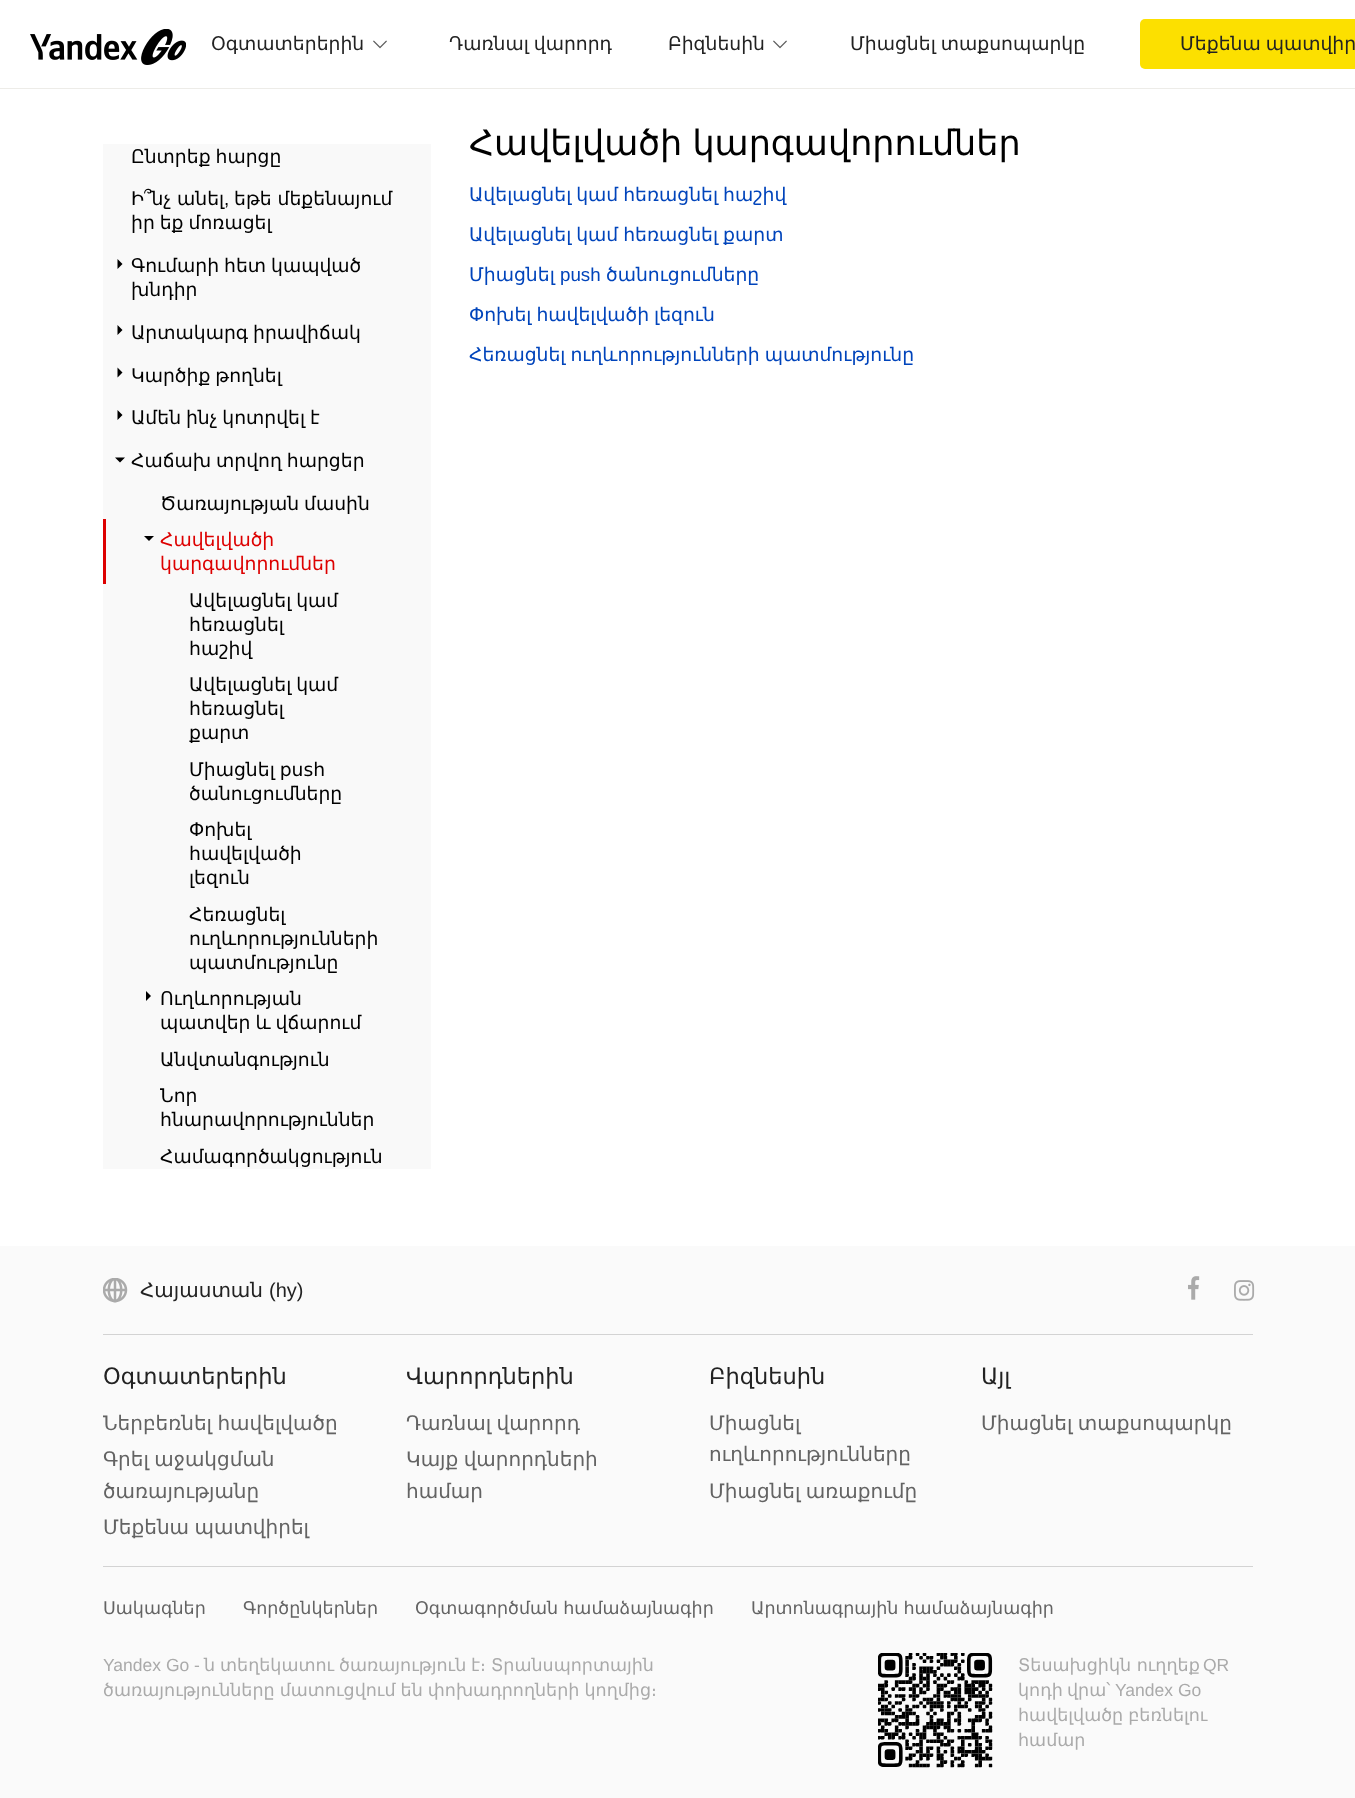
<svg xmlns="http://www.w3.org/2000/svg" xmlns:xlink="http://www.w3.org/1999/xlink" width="1355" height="1798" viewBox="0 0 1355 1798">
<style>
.cls-1{font:18.75px DejaVu Sans;fill:#222222}
.cls-2{font:18.75px DejaVu Sans;fill:#000000}
.cls-3{font:18.75px Liberation Sans;fill:#000000}
.cls-4{font:18.75px DejaVu Sans;fill:#dd0000}
.cls-5{font:35px DejaVu Sans;fill:#000000}
.cls-6{font:18.75px DejaVu Sans;fill:#0044bb}
.cls-7{font:18.75px Liberation Sans;fill:#0044bb}
.cls-8{font:20px DejaVu Sans;fill:#222222}
.cls-9{font:20px Liberation Sans;fill:#222222}
.cls-10{font:22.5px DejaVu Sans;fill:#222222}
.cls-11{font:20px DejaVu Sans;fill:#636363}
.cls-12{font:17.5px DejaVu Sans;fill:#636363}
.cls-13{font:17.5px Liberation Sans;fill:#aaaaaa}
.cls-14{font:17.5px DejaVu Sans;fill:#aaaaaa}
</style>
<rect width="100%" height="100%" fill="#ffffff"/>
<rect fill="#edece8" x="0" y="88" width="1355" height="1"/>
<image xlink:href="image0.png" x="30" y="29" width="156" height="36"/>
<image xlink:href="image1.png" x="373" y="40" width="14" height="9"/>
<image xlink:href="image1.png" x="773" y="40" width="14" height="9"/>
<rect fill="#fce000" x="1140" y="19" width="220" height="50" rx="5"/>
<rect fill="#f9f9f9" x="103" y="144" width="328" height="1025"/>
<path fill="#000000" d="M117.5 269V259L122.5 264Z"/>
<path fill="#000000" d="M117.5 335V325L122.5 330ZM117.5 377.5V367.5L122.5 372.5Z"/>
<path fill="#000000" d="M117.5 420V410L122.5 415ZM115 457.5H125L120 462.5Z"/>
<path fill="#000000" d="M144 536H154L149 541Z"/>
<rect fill="#dd0000" x="103" y="519" width="3" height="65"/>
<path fill="#000000" d="M146 1001V991L151 996Z"/>
<rect fill="#fafafa" x="0" y="1246" width="1355" height="552"/>
<rect fill="#d3d3d3" x="103" y="1334" width="1150" height="1"/>
<image xlink:href="image2.png" x="103" y="1278" width="25" height="25"/>
<image xlink:href="image3.png" x="1188" y="1276" width="12" height="24"/>
<image xlink:href="image4.png" x="1234" y="1280" width="21" height="21"/>
<rect fill="#d3d3d3" x="103" y="1566" width="1150" height="1"/>
<image xlink:href="image5.png" x="878" y="1653" width="115" height="115"/>
<text class="cls-1" x="211" y="50">Օգտատերերին</text>
<text class="cls-1" x="449" y="50" word-spacing="-1">Դառնալ վարորդ</text>
<text class="cls-1" x="668" y="50">Բիզնեսին</text>
<text class="cls-1" x="850" y="50" word-spacing="-1">Միացնել տաքսոպարկը</text>
<text class="cls-1" x="1180" y="50" word-spacing="-1">Մեքենա պատվիր</text>
<text class="cls-2" x="131" y="163" word-spacing="-1">Ընտրեք հարցը</text>
<text class="cls-2" x="131" y="205">Ի՞նչ անել</text>
<text class="cls-3" x="224" y="205">,</text>
<text class="cls-2" x="234" y="205">եթե մեքենայում</text>
<text class="cls-2" x="131" y="229" word-spacing="-1">իր եք մոռացել</text>
<text class="cls-2"><tspan x="131" y="272" word-spacing="-1">Գումարի հետ կապված</tspan><tspan x="131" y="296">խնդիր</tspan></text>
<text class="cls-2" x="131" y="339" word-spacing="-1">Արտակարգ իրավիճակ</text>
<text class="cls-2" x="131" y="382" word-spacing="-1">Կարծիք թողնել</text>
<text class="cls-2" x="131" y="424" word-spacing="-1">Ամեն ինչ կոտրվել է</text>
<text class="cls-2" x="131" y="467" word-spacing="-1">Հաճախ տրվող հարցեր</text>
<text class="cls-2" x="160" y="510" word-spacing="-1">Ծառայության մասին</text>
<text class="cls-4"><tspan x="160" y="546">Հավելվածի</tspan><tspan x="160" y="570">կարգավորումներ</tspan></text>
<text class="cls-2"><tspan x="189" y="607" word-spacing="-1">Ավելացնել կամ</tspan><tspan x="189" y="631">հեռացնել</tspan><tspan x="189" y="655">հաշիվ</tspan><tspan x="189" y="691" word-spacing="-1">Ավելացնել կամ</tspan><tspan x="189" y="715">հեռացնել</tspan><tspan x="189" y="739">քարտ</tspan><tspan x="189" y="776" word-spacing="-1">Միացնել push</tspan><tspan x="189" y="800">ծանուցումները</tspan><tspan x="189" y="836">Փոխել</tspan><tspan x="189" y="860">հավելվածի</tspan><tspan x="189" y="884">լեզուն</tspan><tspan x="189" y="921">Հեռացնել</tspan><tspan x="189" y="945">ուղևորությունների</tspan><tspan x="189" y="969">պատմությունը</tspan></text>
<text class="cls-2"><tspan x="160" y="1005">Ուղևորության</tspan><tspan x="160" y="1029" word-spacing="-1">պատվեր և վճարում</tspan><tspan x="160" y="1066">Անվտանգություն</tspan><tspan x="160" y="1102">Նոր</tspan><tspan x="160" y="1126">հնարավորություններ</tspan><tspan x="160" y="1163">Համագործակցություն</tspan></text>
<text class="cls-5" x="469" y="155" word-spacing="-1">Հավելվածի կարգավորումներ</text>
<text class="cls-6" x="469" y="201" word-spacing="-1">Ավելացնել կամ հեռացնել հաշիվ</text>
<text class="cls-6" x="469" y="241" word-spacing="-1">Ավելացնել կամ հեռացնել քարտ</text>
<text class="cls-6" x="469" y="281">Միացնել</text>
<text class="cls-7" x="560" y="281">push</text>
<text class="cls-6" x="606" y="281">ծանուցումները</text>
<text class="cls-6" x="469" y="321" word-spacing="-1">Փոխել հավելվածի լեզուն</text>
<text class="cls-6" x="469" y="361" word-spacing="-1">Հեռացնել ուղևորությունների պատմությունը</text>
<text class="cls-8" x="140" y="1297">Հայաստան</text>
<text class="cls-9" x="269" y="1297">(hy)</text>
<text class="cls-10" x="103" y="1384">Օգտատերերին</text>
<text class="cls-11"><tspan x="103" y="1430" word-spacing="-1">Ներբեռնել հավելվածը</tspan><tspan x="103" y="1466" word-spacing="-1">Գրել աջակցման</tspan><tspan x="103" y="1498">ծառայությանը</tspan><tspan x="103" y="1534" word-spacing="-1">Մեքենա պատվիրել</tspan></text>
<text class="cls-10" x="406" y="1384">Վարորդներին</text>
<text class="cls-11"><tspan x="406" y="1430" word-spacing="-1">Դառնալ վարորդ</tspan><tspan x="406" y="1466" word-spacing="-1">Կայք վարորդների</tspan><tspan x="406" y="1498">համար</tspan></text>
<text class="cls-10" x="709" y="1384">Բիզնեսին</text>
<text class="cls-11"><tspan x="709" y="1430">Միացնել</tspan><tspan x="709" y="1461">ուղևորությունները</tspan><tspan x="709" y="1498" word-spacing="-1">Միացնել առաքումը</tspan></text>
<text class="cls-10" x="981" y="1384">Այլ</text>
<text class="cls-11" x="981" y="1430" word-spacing="-1">Միացնել տաքսոպարկը</text>
<text class="cls-12" x="103" y="1614">Սակագներ</text>
<text class="cls-12" x="243" y="1614">Գործընկերներ</text>
<text class="cls-12" x="415" y="1614" word-spacing="-0.5">Օգտագործման համաձայնագիր</text>
<text class="cls-12" x="751" y="1614" word-spacing="-0.5">Արտոնագրային համաձայնագիր</text>
<text class="cls-13" x="103" y="1671">Yandex Go -</text>
<text class="cls-14" x="204" y="1671">ն</text>
<text class="cls-14" x="220" y="1671">տեղեկատու</text>
<text class="cls-14" x="339" y="1671">ծառայություն</text>
<text class="cls-14" x="471" y="1671">է։</text>
<text class="cls-14" x="491" y="1671">Տրանսպորտային</text>
<text class="cls-14" x="103" y="1696" word-spacing="-0.5">ծառայությունները մատուցվում են փոխադրողների կողմից։</text>
<text class="cls-14" x="1018" y="1671">Տեսախցիկն ուղղեք</text>
<text class="cls-13" x="1203" y="1671">QR</text>
<text class="cls-14" x="1018" y="1696">կոդի</text>
<text class="cls-14" x="1067" y="1696">վրա՝</text>
<text class="cls-13" x="1115" y="1696">Yandex Go</text>
<text class="cls-14"><tspan x="1018" y="1721" word-spacing="-0.5">հավելվածը բեռնելու</tspan><tspan x="1018" y="1746">համար</tspan></text>
</svg>
